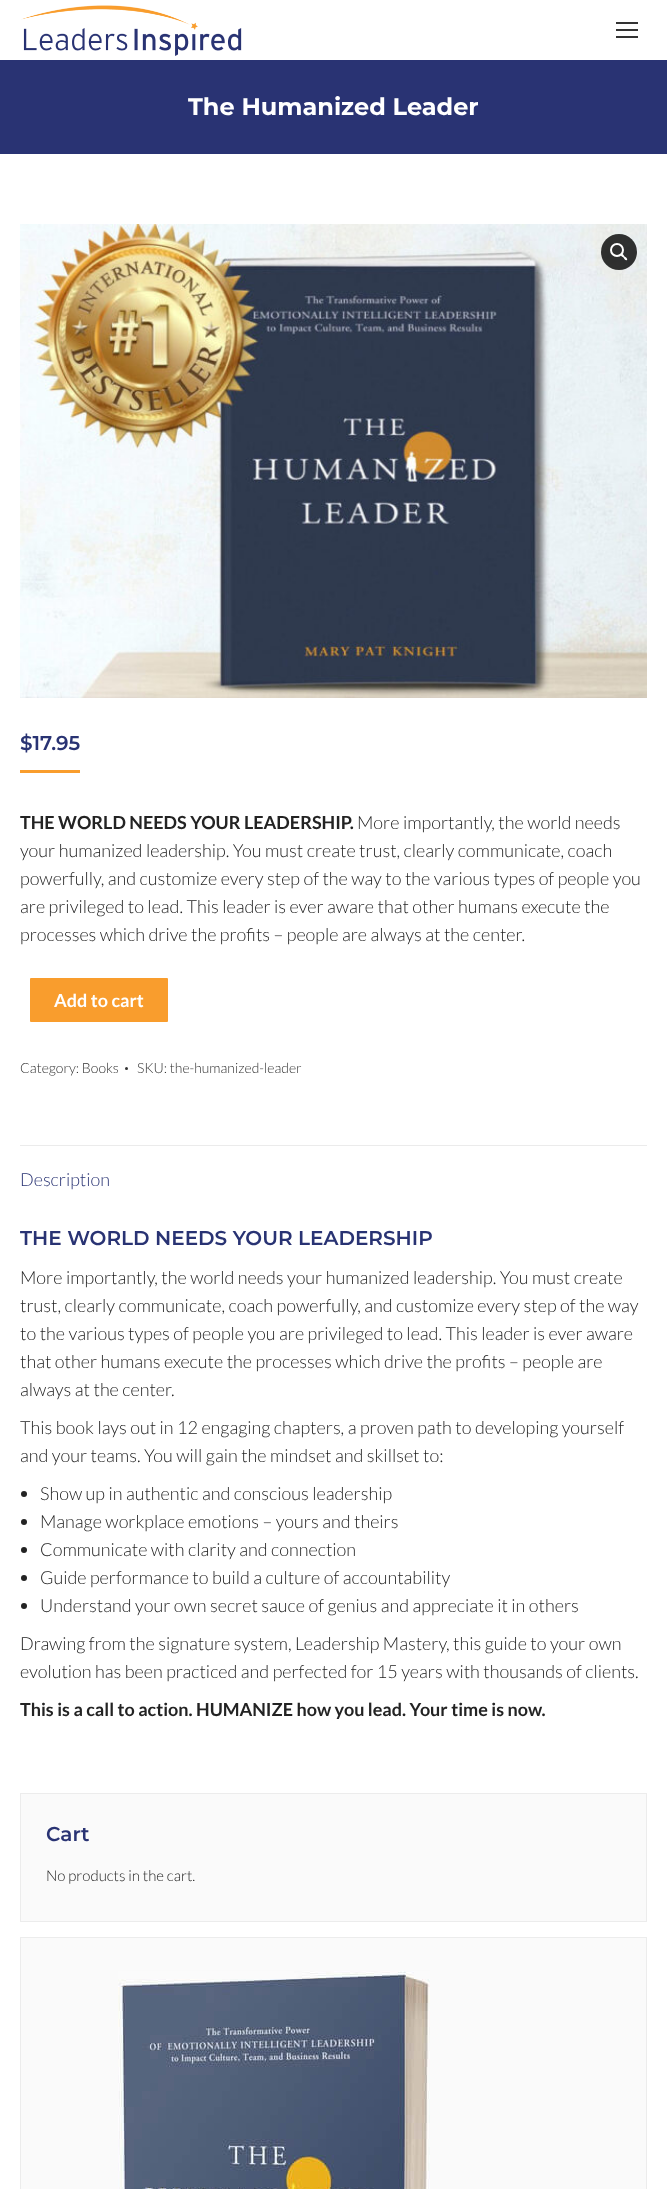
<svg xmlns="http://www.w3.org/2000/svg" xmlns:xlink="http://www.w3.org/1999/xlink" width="667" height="2189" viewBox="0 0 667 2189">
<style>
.cls-1{font:bold 24px Montserrat;fill:#ffffff}
.cls-2{font:600 20px Montserrat;fill:#293373}
.cls-3{font:bold 18px Lato;fill:#232323}
.cls-4{font:300 18px Lato;fill:#232323}
.cls-5{font:bold 18px Lato;fill:#ffffff}
.cls-6{font:300 14px Lato;fill:#333333}
.cls-7{font:300 18px Lato;fill:#293373}
.cls-8{font:300 15px Lato;fill:#232323}
</style>
<rect width="100%" height="100%" fill="#ffffff"/>
<image xlink:href="image0.png" x="21" y="5" width="221" height="51"/>
<rect fill="#333333" x="616" y="22" width="22" height="2"/>
<rect fill="#333333" x="616" y="29" width="22" height="2"/>
<rect fill="#333333" x="616" y="36" width="22" height="2"/>
<rect fill="#293373" x="0" y="60" width="667" height="94"/>
<image xlink:href="image1.png" x="20" y="224" width="627" height="474"/>
<circle fill="#000000" fill-opacity="0.8" cx="619" cy="252" r="18"/>
<circle fill="none" stroke="#ffffff" stroke-width="2" cx="617" cy="250" r="6"/>
<path fill="#ffffff" d="M621 254C622.5 253 624 255.5 624.5 256.5C625.5 257 628 258.5 627 260C625.5 261 624 258.5 623.5 257.5C622.5 257 620 255.5 621 254Z"/>
<rect fill="#f99d2d" x="20" y="770" width="60" height="3"/>
<rect fill="#f99d2d" x="30" y="978" width="138" height="44" rx="1"/>
<circle fill="#333333" cx="126.5" cy="1068.5" r="1.5"/>
<rect fill="#ebebeb" x="20" y="1145" width="627" height="1"/>
<circle fill="#232323" cx="24" cy="1494" r="3"/>
<circle fill="#232323" cx="24" cy="1522" r="3"/>
<circle fill="#232323" cx="24" cy="1550" r="3"/>
<circle fill="#232323" cx="24" cy="1578" r="3"/>
<circle fill="#232323" cx="24" cy="1606" r="3"/>
<rect fill="#fafafa" stroke="#ececec" x="20.5" y="1793.5" width="626" height="128"/>
<rect fill="#fafafa" stroke="#ececec" x="20.5" y="1937.5" width="626" height="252"/>
<image xlink:href="image2.png" x="118" y="1971" width="312" height="218"/>
<text class="cls-1" x="188" y="115">The Humanized Leader</text>
<text class="cls-2" x="20" y="750">$17.95</text>
<text class="cls-3" x="20" y="829">THE WORLD NEEDS YOUR LEADERSHIP.</text>
<text class="cls-4" x="357" y="829">More importantly, the world needs</text>
<text class="cls-4"><tspan x="20" y="857">your humanized leadership. You must create trust, clearly communicate, coach</tspan><tspan x="20" y="885">powerfully, and customize every step of the way to the various types of people you</tspan><tspan x="20" y="913">are privileged to lead. This leader is ever aware that other humans execute the</tspan><tspan x="20" y="941">processes which drive the profits – people are always at the center.</tspan></text>
<text class="cls-5" x="54" y="1007">Add to cart</text>
<text class="cls-6" x="20" y="1073">Category: Books</text>
<text class="cls-6" x="137" y="1073">SKU: the-humanized-leader</text>
<text class="cls-7" x="20" y="1186">Description</text>
<text class="cls-2" x="20" y="1245">THE WORLD NEEDS YOUR LEADERSHIP</text>
<text class="cls-4"><tspan x="20" y="1284">More importantly, the world needs your humanized leadership. You must create</tspan><tspan x="20" y="1312">trust, clearly communicate, coach powerfully, and customize every step of the way</tspan><tspan x="20" y="1340">to the various types of people you are privileged to lead. This leader is ever aware</tspan><tspan x="20" y="1368">that other humans execute the processes which drive the profits – people are</tspan><tspan x="20" y="1396">always at the center.</tspan></text>
<text class="cls-4"><tspan x="20" y="1434">This book lays out in 12 engaging chapters, a proven path to developing yourself</tspan><tspan x="20" y="1462">and your teams. You will gain the mindset and skillset to:</tspan></text>
<text class="cls-4"><tspan x="40" y="1500">Show up in authentic and conscious leadership</tspan><tspan x="40" y="1528">Manage workplace emotions – yours and theirs</tspan><tspan x="40" y="1556">Communicate with clarity and connection</tspan><tspan x="40" y="1584">Guide performance to build a culture of accountability</tspan><tspan x="40" y="1612">Understand your own secret sauce of genius and appreciate it in others</tspan></text>
<text class="cls-4"><tspan x="20" y="1650">Drawing from the signature system, Leadership Mastery, this guide to your own</tspan><tspan x="20" y="1678">evolution has been practiced and perfected for 15 years with thousands of clients.</tspan></text>
<text class="cls-3" x="20" y="1716">This is a call to action. HUMANIZE how you lead. Your time is now.</text>
<text class="cls-2" x="46" y="1841">Cart</text>
<text class="cls-8" x="46" y="1881">No products in the cart.</text>
</svg>
